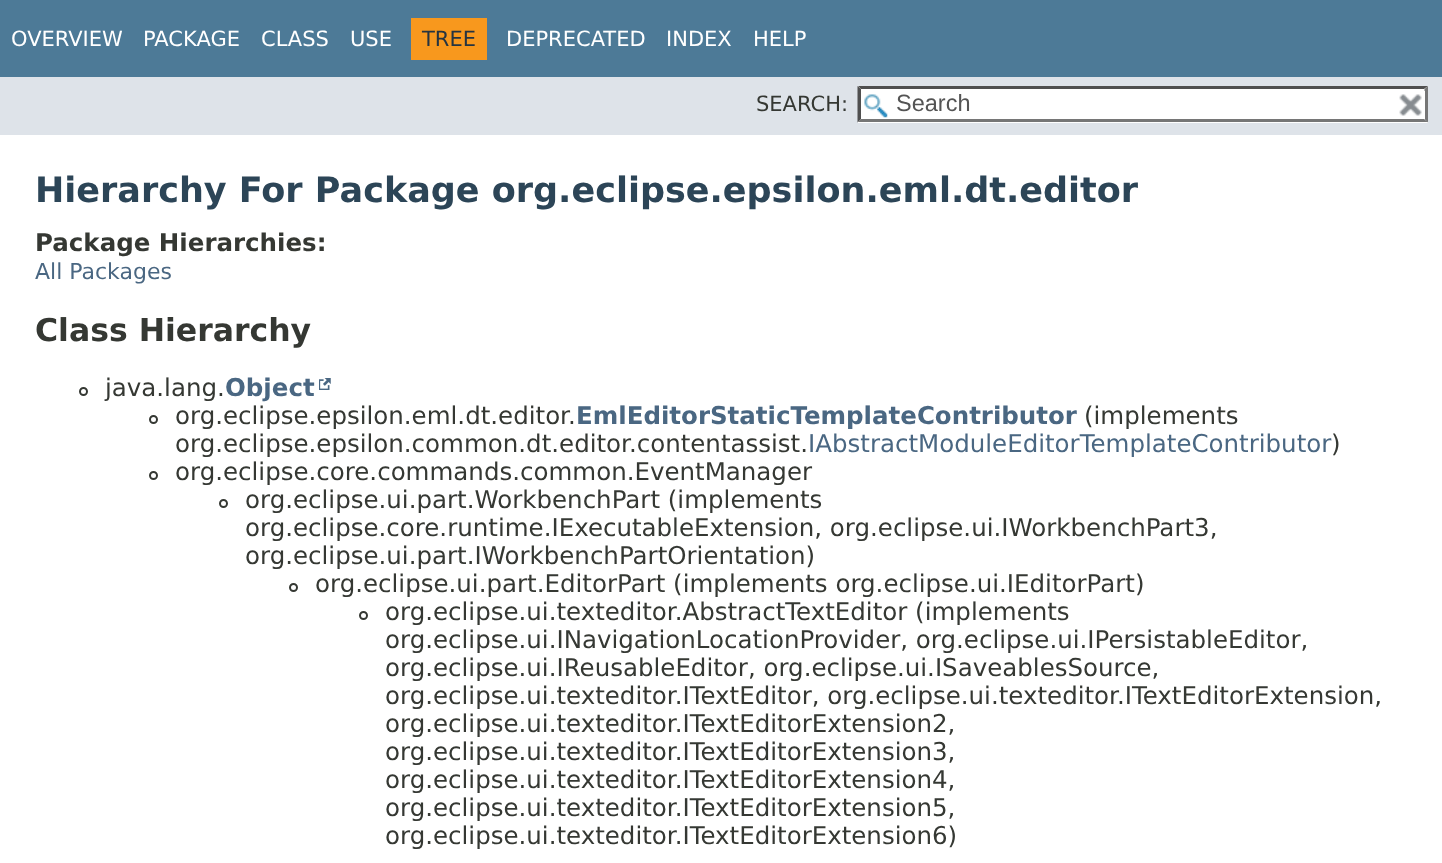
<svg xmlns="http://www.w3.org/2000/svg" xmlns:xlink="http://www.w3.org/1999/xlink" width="1442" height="863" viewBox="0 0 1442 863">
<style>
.cls-1{font:21px DejaVu Sans;fill:#ffffff}
.cls-2{font:21px DejaVu Sans;fill:#253441}
.cls-3{font:21px DejaVu Sans;fill:#353833}
.cls-4{font:23.5px Liberation Sans;fill:#545454}
.cls-5{font:bold 35px DejaVu Sans;fill:#2c4557}
.cls-6{font:bold 24.5px DejaVu Sans;fill:#353833}
.cls-7{font:22px DejaVu Sans;fill:#4a6782}
.cls-8{font:bold 31.5px DejaVu Sans;fill:#353833}
.cls-9{font:24.5px DejaVu Sans;fill:#353833}
.cls-10{font:bold 24.5px DejaVu Sans;fill:#4a6782}
.cls-11{font:24.5px DejaVu Sans;fill:#4a6782}
</style>
<rect width="100%" height="100%" fill="#ffffff"/>
<rect fill="#4d7a97" x="0" y="0" width="1442" height="77"/>
<rect fill="#f8981d" x="411" y="18" width="76" height="42"/>
<rect fill="#dee3e9" x="0" y="77" width="1442" height="58"/>
<rect fill="#ffffff" x="858" y="86" width="570" height="37"/>
<image xlink:href="image0.png" x="864" y="94" width="24" height="24"/>
<path fill="#4f4f4f" d="M858 86H1428L1424 89H861Z"/>
<path fill="#767676" d="M1428 86V122.5L1424.5 119V89Z"/>
<path fill="#767676" d="M1428 122H858L861 119H1424Z"/>
<path fill="#4f4f4f" d="M857.5 122.5V86L861 89V119Z"/>
<rect fill="#ffffff" x="1424" y="91" width="1" height="28"/>
<image xlink:href="image1.png" x="1399" y="94" width="23" height="22"/>
<circle fill="none" stroke="#353833" stroke-width="2" cx="83.5" cy="391.5" r="3.5"/>
<image xlink:href="image2.png" x="319" y="378" width="12" height="12"/>
<circle fill="none" stroke="#353833" stroke-width="2" cx="153.5" cy="419.5" r="3.5"/>
<circle fill="none" stroke="#353833" stroke-width="2" cx="153.5" cy="475.5" r="3.5"/>
<circle fill="none" stroke="#353833" stroke-width="2" cx="223.5" cy="503.5" r="3.5"/>
<circle fill="none" stroke="#353833" stroke-width="2" cx="293.5" cy="587.5" r="3.5"/>
<circle fill="none" stroke="#353833" stroke-width="2" cx="363.5" cy="615.5" r="3.5"/>
<text class="cls-1" x="11" y="46">OVERVIEW</text>
<text class="cls-1" x="143" y="46">PACKAGE</text>
<text class="cls-1" x="261" y="46">CLASS</text>
<text class="cls-1" x="350" y="46">USE</text>
<text class="cls-2" x="422" y="46">TREE</text>
<text class="cls-1" x="506" y="46">DEPRECATED</text>
<text class="cls-1" x="666" y="46">INDEX</text>
<text class="cls-1" x="753" y="46">HELP</text>
<text class="cls-3" x="756" y="111">SEARCH:</text>
<text class="cls-4" x="896" y="111">Search</text>
<text class="cls-5" x="35" y="202">Hierarchy For Package org.eclipse.epsilon.eml.dt.editor</text>
<text class="cls-6" x="35" y="251">Package Hierarchies:</text>
<text class="cls-7" x="35" y="279">All Packages</text>
<text class="cls-8" x="35" y="341">Class Hierarchy</text>
<text class="cls-9" x="105" y="396">java.lang.</text>
<text class="cls-10" x="225" y="396">Object</text>
<text class="cls-9" x="175" y="424">org.eclipse.epsilon.eml.dt.editor.</text>
<text class="cls-10" x="576" y="424">EmlEditorStaticTemplateContributor</text>
<text class="cls-9" x="1084" y="424">(implements</text>
<text class="cls-9" x="175" y="452">org.eclipse.epsilon.common.dt.editor.contentassist.</text>
<text class="cls-11" x="808" y="452">IAbstractModuleEditorTemplateContributor</text>
<text class="cls-9" x="1331" y="452">)</text>
<text class="cls-9" x="175" y="480">org.eclipse.core.commands.common.EventManager</text>
<text class="cls-9"><tspan x="245" y="508">org.eclipse.ui.part.WorkbenchPart (implements</tspan><tspan x="245" y="536">org.eclipse.core.runtime.IExecutableExtension, org.eclipse.ui.IWorkbenchPart3,</tspan><tspan x="245" y="564">org.eclipse.ui.part.IWorkbenchPartOrientation)</tspan></text>
<text class="cls-9" x="315" y="592">org.eclipse.ui.part.EditorPart (implements org.eclipse.ui.IEditorPart)</text>
<text class="cls-9"><tspan x="385" y="620">org.eclipse.ui.texteditor.AbstractTextEditor (implements</tspan><tspan x="385" y="648">org.eclipse.ui.INavigationLocationProvider, org.eclipse.ui.IPersistableEditor,</tspan><tspan x="385" y="676">org.eclipse.ui.IReusableEditor, org.eclipse.ui.ISaveablesSource,</tspan><tspan x="385" y="704">org.eclipse.ui.texteditor.ITextEditor, org.eclipse.ui.texteditor.ITextEditorExtension,</tspan><tspan x="385" y="732">org.eclipse.ui.texteditor.ITextEditorExtension2,</tspan><tspan x="385" y="760">org.eclipse.ui.texteditor.ITextEditorExtension3,</tspan><tspan x="385" y="788">org.eclipse.ui.texteditor.ITextEditorExtension4,</tspan><tspan x="385" y="816">org.eclipse.ui.texteditor.ITextEditorExtension5,</tspan><tspan x="385" y="844">org.eclipse.ui.texteditor.ITextEditorExtension6)</tspan></text>
</svg>
